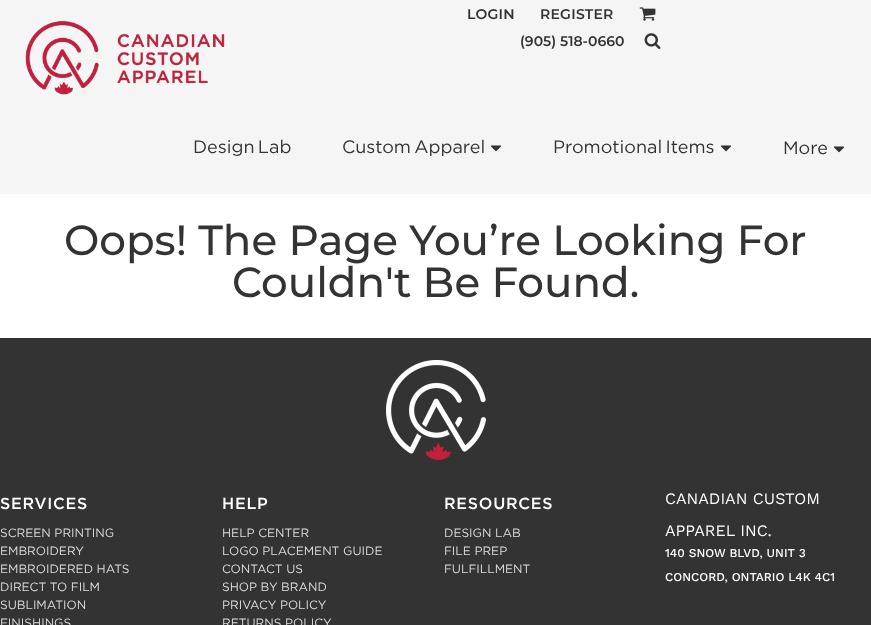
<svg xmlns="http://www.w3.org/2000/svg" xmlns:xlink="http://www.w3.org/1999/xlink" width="871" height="625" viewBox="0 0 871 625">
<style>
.cls-1{font:600 14px Montserrat;letter-spacing:0.25px;fill:#333333}
.cls-2{font:600 14px Montserrat;fill:#333333}
.cls-3{font:18px Gotham;fill:#333333}
.cls-4{font:500 42px Montserrat;fill:#333333}
.cls-5{font:500 16px Gotham;letter-spacing:0.75px;fill:#ffffff}
.cls-6{font:12px Gotham;fill:#dcdcdc}
.cls-7{font:16px Work Sans;fill:#ffffff}
.cls-8{font:500 12px Work Sans;fill:#ffffff}
</style>
<rect width="100%" height="100%" fill="#ffffff"/>
<rect fill="#f5f5f5" x="0" y="0" width="871" height="194"/>
<image xlink:href="image0.png" x="25" y="20" width="200" height="75"/>
<image xlink:href="image1.png" x="639" y="7" width="17" height="14"/>
<image xlink:href="image2.png" x="644" y="33" width="17" height="16"/>
<image xlink:href="image3.png" x="490" y="145" width="12" height="7"/>
<image xlink:href="image3.png" x="720" y="145" width="12" height="7"/>
<image xlink:href="image3.png" x="833" y="146" width="12" height="7"/>
<rect fill="#333333" x="0" y="338" width="871" height="287"/>
<image xlink:href="image4.png" x="386" y="360" width="100" height="100"/>
<text class="cls-1" x="467" y="19">LOGIN</text>
<text class="cls-1" x="540" y="19">REGISTER</text>
<text class="cls-2" x="520" y="46">(905) 518-0660</text>
<text class="cls-3" x="193" y="153" word-spacing="-2">Design Lab</text>
<text class="cls-3" x="342" y="153" word-spacing="-2">Custom Apparel</text>
<text class="cls-3" x="553" y="153" word-spacing="-2">Promotional Items</text>
<text class="cls-3" x="783" y="154">More</text>
<text class="cls-4" x="64" y="255">Oops! The Page You’re Looking For</text>
<text class="cls-4" x="232" y="297">Couldn't Be Found.</text>
<text class="cls-5" x="0" y="509">SERVICES</text>
<text class="cls-6"><tspan x="0" y="537">SCREEN PRINTING</tspan><tspan x="0" y="555">EMBROIDERY</tspan><tspan x="0" y="573">EMBROIDERED HATS</tspan><tspan x="0" y="591">DIRECT TO FILM</tspan><tspan x="0" y="609">SUBLIMATION</tspan><tspan x="0" y="627">FINISHINGS</tspan></text>
<text class="cls-5" x="222" y="509">HELP</text>
<text class="cls-6"><tspan x="222" y="537">HELP CENTER</tspan><tspan x="222" y="555">LOGO PLACEMENT GUIDE</tspan><tspan x="222" y="573">CONTACT US</tspan><tspan x="222" y="591">SHOP BY BRAND</tspan><tspan x="222" y="609">PRIVACY POLICY</tspan><tspan x="222" y="627">RETURNS POLICY</tspan></text>
<text class="cls-5" x="444" y="509">RESOURCES</text>
<text class="cls-6"><tspan x="444" y="537">DESIGN LAB</tspan><tspan x="444" y="555">FILE PREP</tspan><tspan x="444" y="573">FULFILLMENT</tspan></text>
<text class="cls-7" x="665" y="504">CANADIAN CUSTOM</text>
<text class="cls-7" x="665" y="536">APPAREL INC.</text>
<text class="cls-8" x="665" y="557">140 SNOW BLVD, UNIT 3</text>
<text class="cls-8" x="665" y="581">CONCORD, ONTARIO L4K 4C1</text>
</svg>
